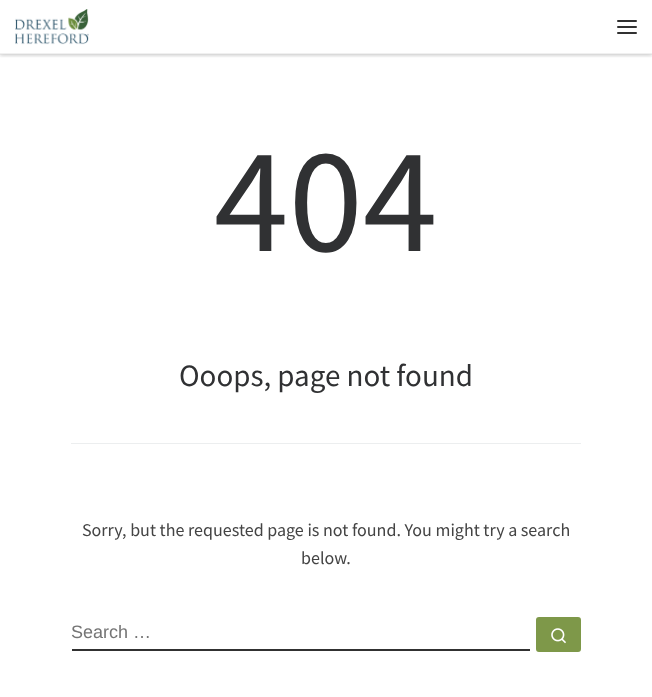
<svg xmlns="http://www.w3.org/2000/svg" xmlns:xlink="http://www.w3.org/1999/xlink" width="652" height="697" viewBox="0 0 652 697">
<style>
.cls-1{font:150px Source Sans Pro;fill:#303133}
.cls-2{font:31px Source Sans Pro;fill:#303133}
.cls-3{font:18px Source Sans Pro;fill:#444444}
.cls-4{font:18px Liberation Sans;fill:#757575}
</style>
<defs>
<clipPath id="clip1"><rect x="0" y="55" width="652" height="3"/></clipPath>
<clipPath id="clip2"><rect x="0" y="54" width="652" height="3"/></clipPath>
</defs>
<rect width="100%" height="100%" fill="#ffffff"/>
<g clip-path="url(#clip1)">
<rect fill="#666666" fill-opacity="0.08" filter="blur(1px)" x="0" y="2" width="652" height="55"/>
</g>
<rect fill="#efefef" x="0" y="54" width="652" height="1"/>
<g clip-path="url(#clip2)">
<rect fill="#000000" fill-opacity="0.2" filter="blur(2.5px)" x="0" y="0" width="652" height="54"/>
</g>
<image xlink:href="image0.png" x="15" y="9" width="74" height="36"/>
<rect fill="#313131" x="617" y="20" width="20" height="2" rx="1"/>
<rect fill="#313131" x="617" y="26" width="20" height="2" rx="1"/>
<rect fill="#313131" x="617" y="32" width="20" height="2" rx="1"/>
<rect fill="#f0f0f0" x="0" y="53" width="652" height="1"/>
<rect fill="#eceeef" x="71" y="443" width="510" height="1"/>
<rect fill="#313131" x="72" y="649" width="458" height="2"/>
<rect fill="#7e9849" stroke="#7e9849" stroke-width="2" x="537" y="618" width="43" height="33" rx="2"/>
<image xlink:href="image1.png" x="551" y="628" width="15" height="16"/>
<text class="cls-1" x="214" y="251">404</text>
<text class="cls-2" x="179" y="386">Ooops, page not found</text>
<text class="cls-3" x="82" y="536">Sorry, but the requested page is not found. You might try a search</text>
<text class="cls-3" x="301" y="564">below.</text>
<text class="cls-4" x="71" y="638">Search …</text>
</svg>
